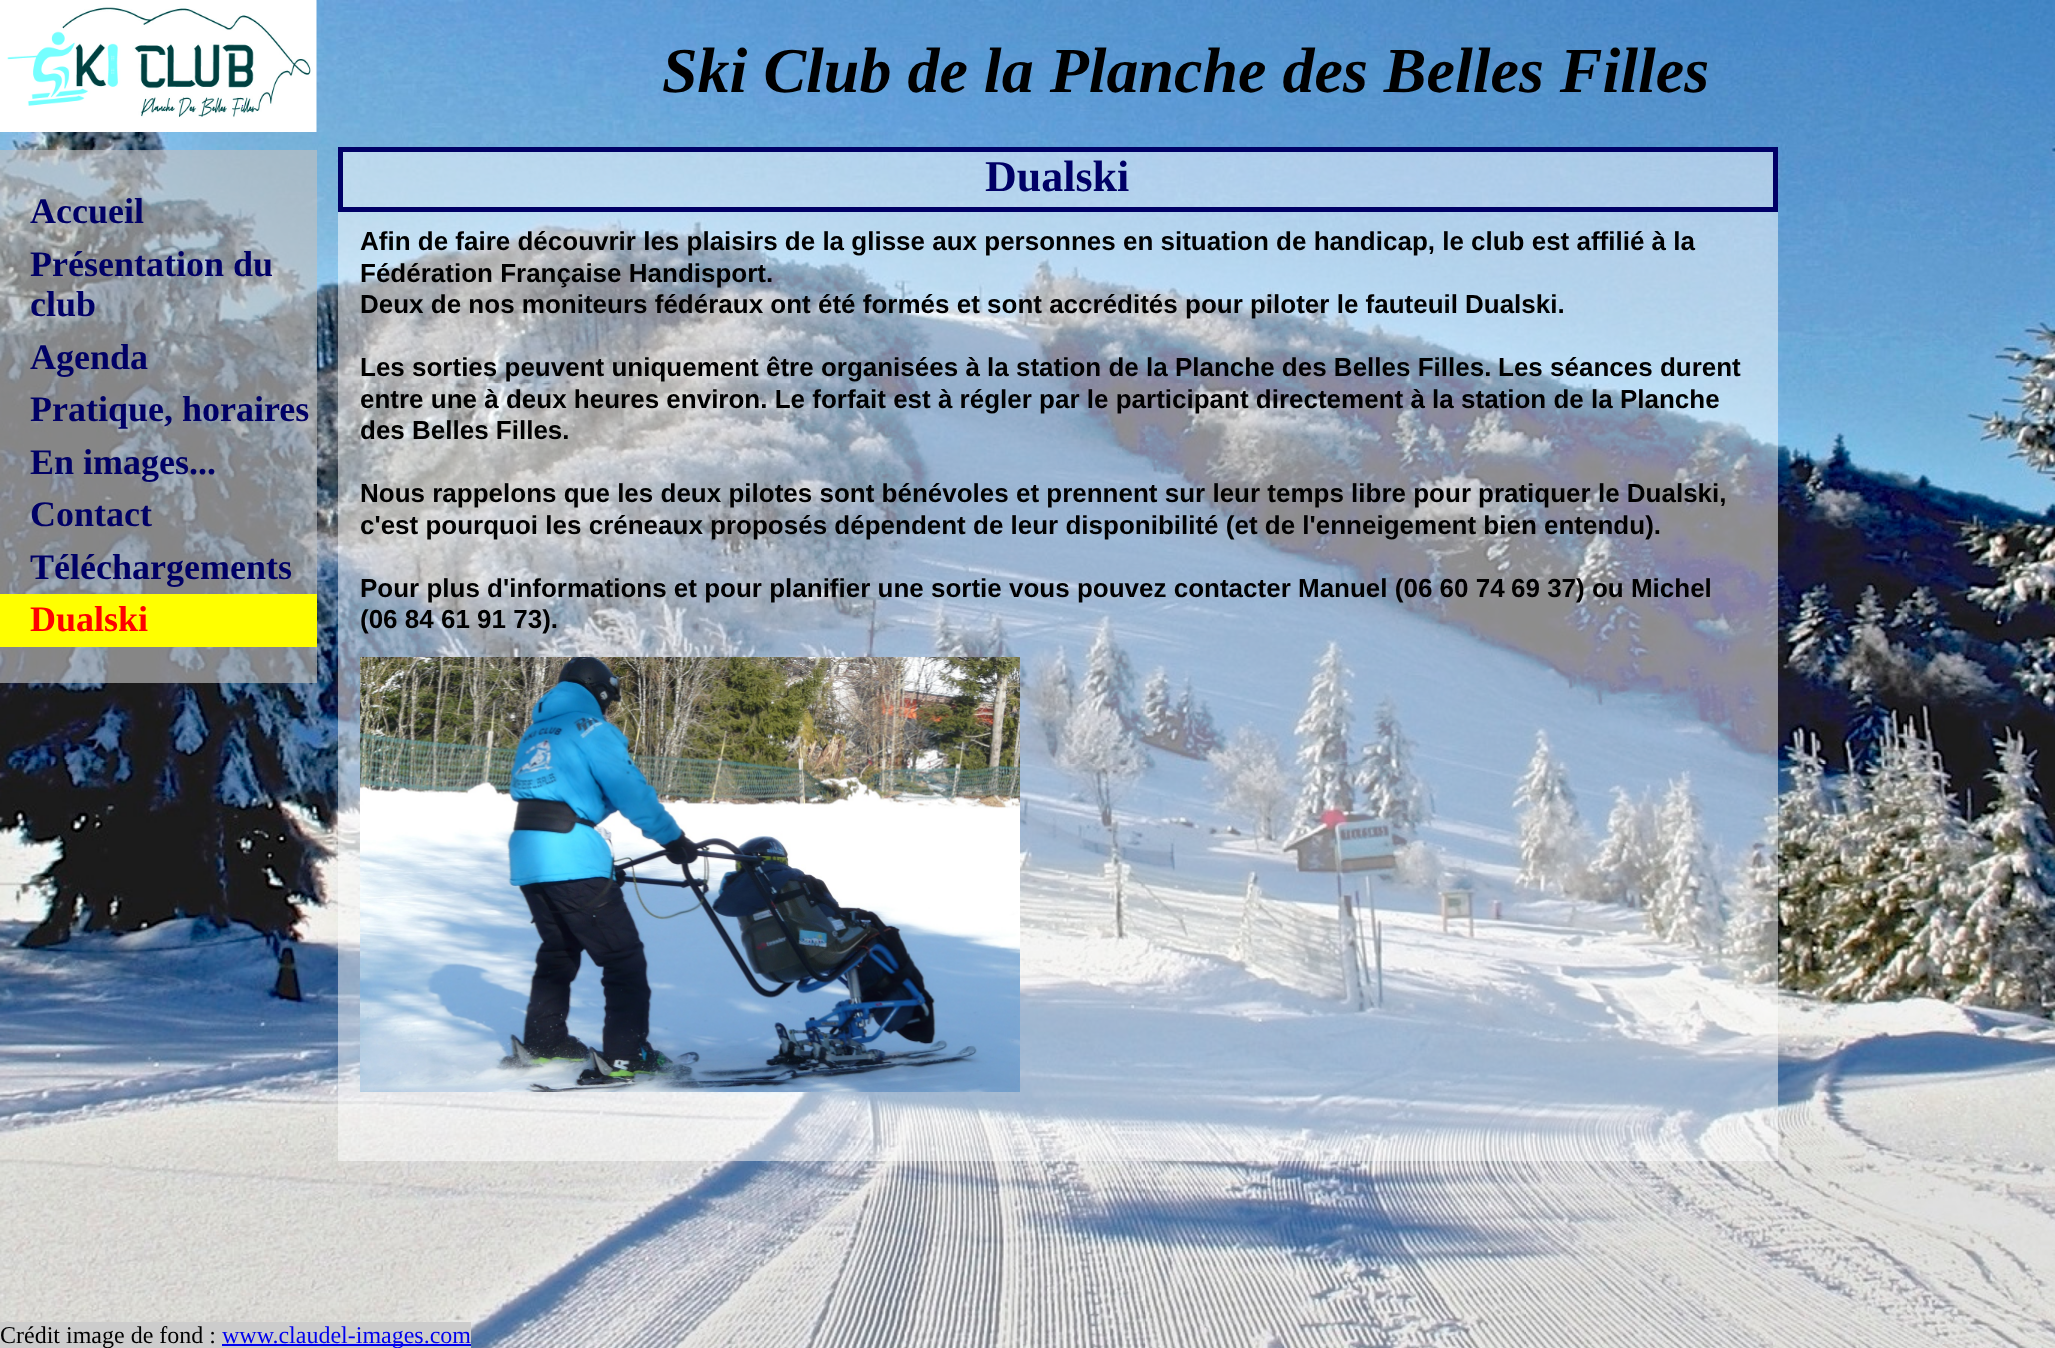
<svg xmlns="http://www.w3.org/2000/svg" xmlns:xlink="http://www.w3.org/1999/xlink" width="2055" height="1348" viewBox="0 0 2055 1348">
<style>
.cls-1{font:italic bold 64px Liberation Serif;fill:#000000}
.cls-2{font:bold 36px Liberation Serif;fill:#000066}
.cls-3{font:bold 36px Liberation Serif;fill:#ff0000}
.cls-4{font:bold 44px Liberation Serif;fill:#000066}
.cls-5{font:bold 26px Liberation Sans;fill:#000000}
.cls-6{font:24px Liberation Serif;fill:#000000}
.cls-7{font:24px Liberation Serif;fill:#0000ee}
</style>
<rect width="100%" height="100%" fill="#ffffff"/>
<image xlink:href="image0.png" x="0" y="0" width="2055" height="1348"/>
<image xlink:href="image1.png" x="0" y="0" width="317" height="132"/>
<rect fill="#c0c0c0" fill-opacity="0.65" x="0" y="150" width="317" height="533"/>
<rect fill="#ffff00" x="0" y="594" width="317" height="53"/>
<rect fill="#ffffff" fill-opacity="0.5" x="338" y="152" width="1440" height="1009"/>
<rect fill="none" stroke="#000066" stroke-width="5" x="340.5" y="149.5" width="1435" height="60"/>
<image xlink:href="image2.png" x="360" y="657" width="660" height="435"/>
<rect fill="#cccccc" x="0" y="1322" width="471" height="26"/>
<rect fill="#0000ee" x="222" y="1344" width="249" height="2"/>
<text class="cls-1" x="662" y="92">Ski Club de la Planche des Belles Filles</text>
<text class="cls-2"><tspan x="30" y="223">Accueil</tspan><tspan x="30" y="276">Présentation du</tspan><tspan x="30" y="316">club</tspan><tspan x="30" y="369">Agenda</tspan><tspan x="30" y="421">Pratique, horaires</tspan><tspan x="30" y="474">En images...</tspan><tspan x="30" y="526">Contact</tspan><tspan x="30" y="579">Téléchargements</tspan></text>
<text class="cls-3" x="30" y="631">Dualski</text>
<text class="cls-4" x="985" y="191">Dualski</text>
<text class="cls-5" x="360" y="250">Afin de faire découvrir les plaisirs de la glisse aux personnes en situation de handicap, le</text>
<text class="cls-5" x="1471" y="250">club est affilié à la</text>
<text class="cls-5"><tspan x="360" y="282">Fédération Française Handisport.</tspan><tspan x="360" y="313">Deux de nos moniteurs fédéraux ont été formés et sont accrédités pour piloter le fauteuil</tspan></text>
<text class="cls-5" x="1465" y="313">Dualski.</text>
<text class="cls-5" x="360" y="376">Les sorties peuvent uniquement être organisées à la station de la Planche des Belles Filles.</text>
<text class="cls-5" x="1498" y="376">Les séances durent</text>
<text class="cls-5"><tspan x="360" y="408">entre une à deux heures environ. Le forfait est à régler par le participant directement à la station de la Planche</tspan><tspan x="360" y="439">des Belles Filles.</tspan></text>
<text class="cls-5" x="360" y="502">Nous rappelons que les deux pilotes sont bénévoles et prennent sur leur temps libre pour</text>
<text class="cls-5" x="1478" y="502">pratiquer le Dualski,</text>
<text class="cls-5" x="360" y="534">c'est pourquoi les créneaux proposés dépendent de leur disponibilité (et de l'enneigement bien entendu).</text>
<text class="cls-5" x="360" y="597">Pour plus d'informations et pour planifier une sortie vous pouvez contacter Manuel (06 60 74</text>
<text class="cls-5" x="1511" y="597">69 37) ou Michel</text>
<text class="cls-5" x="360" y="628">(06 84 61 91 73).</text>
<text class="cls-6" x="0" y="1343">Crédit image de fond :</text>
<text class="cls-7" x="222" y="1343">www.claudel-images.com</text>
</svg>
